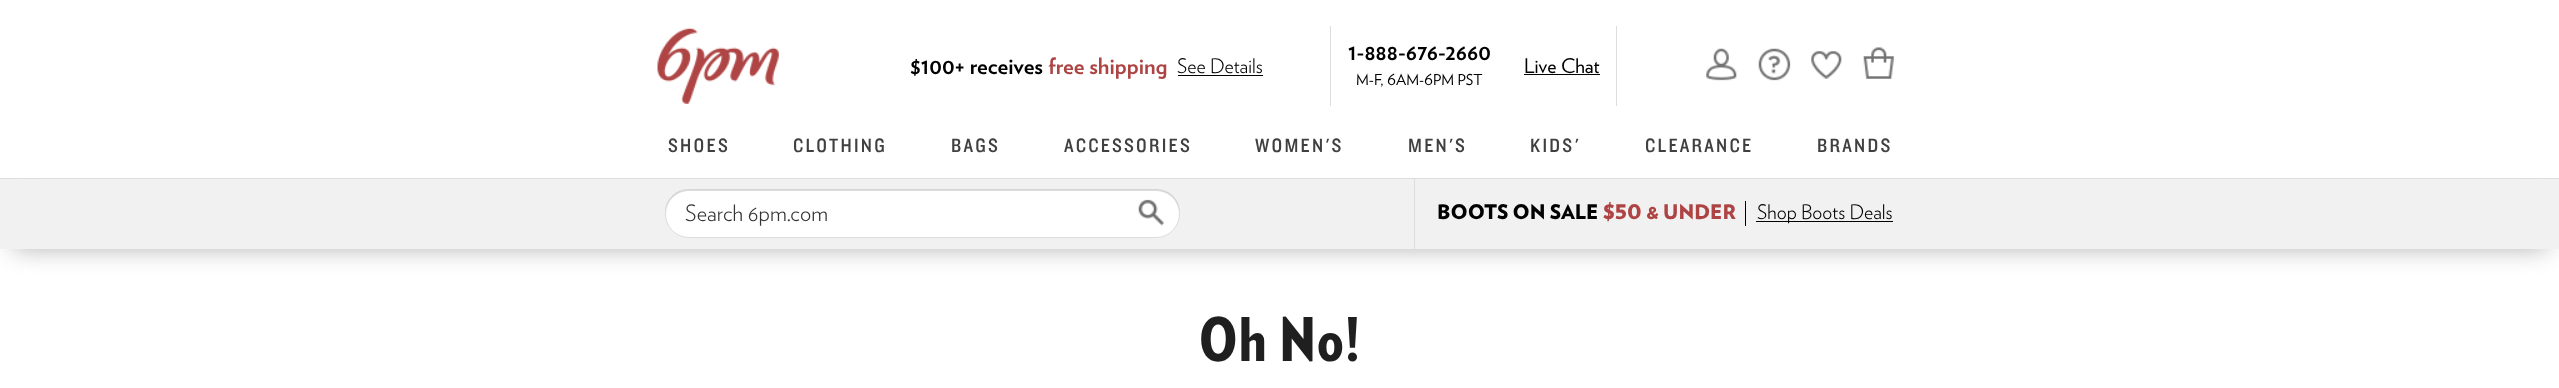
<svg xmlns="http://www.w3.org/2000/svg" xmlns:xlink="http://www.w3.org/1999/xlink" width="2559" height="388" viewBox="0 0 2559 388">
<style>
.cls-1{font:bold 22.5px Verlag;fill:#000000}
.cls-2{font:bold 22.5px Verlag;fill:#ae4343}
.cls-3{font:300 20px Verlag;fill:#000000}
.cls-4{font:15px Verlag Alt;fill:#000000}
.cls-5{font:20px Verlag;fill:#000000}
.cls-6{font:300 20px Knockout;letter-spacing:2.25px;fill:#404040}
.cls-7{font:300 22.5px Verlag;fill:#333333}
.cls-8{font:900 20px Verlag;fill:#000000}
.cls-9{font:900 20px Verlag Alt;fill:#ae4343}
.cls-10{font:900 60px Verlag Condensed;letter-spacing:1.25px;fill:#1f1f1f}
</style>
<rect width="100%" height="100%" fill="#ffffff"/>
<image xlink:href="image0.png" x="657" y="28" width="122" height="76"/>
<rect fill="#000000" x="1178" y="75" width="85" height="1"/>
<rect fill="#dddddd" x="1616" y="26" width="1" height="80"/>
<rect fill="#dddddd" x="1330" y="26" width="1" height="80"/>
<rect fill="#000000" x="1524" y="74" width="76" height="1"/>
<image xlink:href="image1.png" x="1706" y="48" width="31" height="33"/>
<image xlink:href="image2.png" x="1758" y="48" width="33" height="33"/>
<image xlink:href="image3.png" x="1811" y="50" width="31" height="29"/>
<image xlink:href="image4.png" x="1863" y="47" width="32" height="32"/>
<rect fill="#b3b3b3" filter="blur(12.5px)" x="13" y="203" width="2535" height="46"/>
<rect fill="#f1f1f1" x="0" y="179" width="2559" height="70"/>
<rect fill="#dddddd" x="0" y="178" width="2559" height="1"/>
<rect fill="#c7c7c7" fill-opacity="0.68" filter="blur(0.5px)" x="665" y="189" width="515" height="47" rx="23.5"/>
<rect fill="#ffffff" stroke="#dddddd" x="665.5" y="190.5" width="514" height="47" rx="23.5"/>
<image xlink:href="image5.png" x="1138" y="199" width="26" height="27"/>
<rect fill="#dddddd" x="1414" y="179" width="1" height="70"/>
<rect fill="#000000" x="1745" y="201" width="1" height="25"/>
<rect fill="#000000" x="1756" y="221" width="137" height="1"/>
<text class="cls-1" x="910" y="74">$100+ receives</text>
<text class="cls-2" x="1048" y="74">free shipping</text>
<text class="cls-3" x="1177" y="73">See Details</text>
<text class="cls-1" x="1348" y="60">1-888-676-2660</text>
<text class="cls-4" x="1356" y="85">M-F, 6AM-6PM PST</text>
<text class="cls-5" x="1524" y="73">Live Chat</text>
<text class="cls-6" x="668" y="152">SHOES</text>
<text class="cls-6" x="793" y="152">CLOTHING</text>
<text class="cls-6" x="951" y="152">BAGS</text>
<text class="cls-6" x="1064" y="152">ACCESSORIES</text>
<text class="cls-6" x="1255" y="152">WOMEN'S</text>
<text class="cls-6" x="1408" y="152">MEN'S</text>
<text class="cls-6" x="1530" y="152">KIDS'</text>
<text class="cls-6" x="1645" y="152">CLEARANCE</text>
<text class="cls-6" x="1817" y="152">BRANDS</text>
<text class="cls-7" x="685" y="221">Search 6pm.com</text>
<text class="cls-8" x="1437" y="219">BOOTS ON SALE</text>
<text class="cls-9" x="1603" y="219">$50 &amp; UNDER</text>
<text class="cls-3" x="1757" y="219">Shop Boots Deals</text>
<text class="cls-10" x="1199" y="361">Oh No!</text>
</svg>
